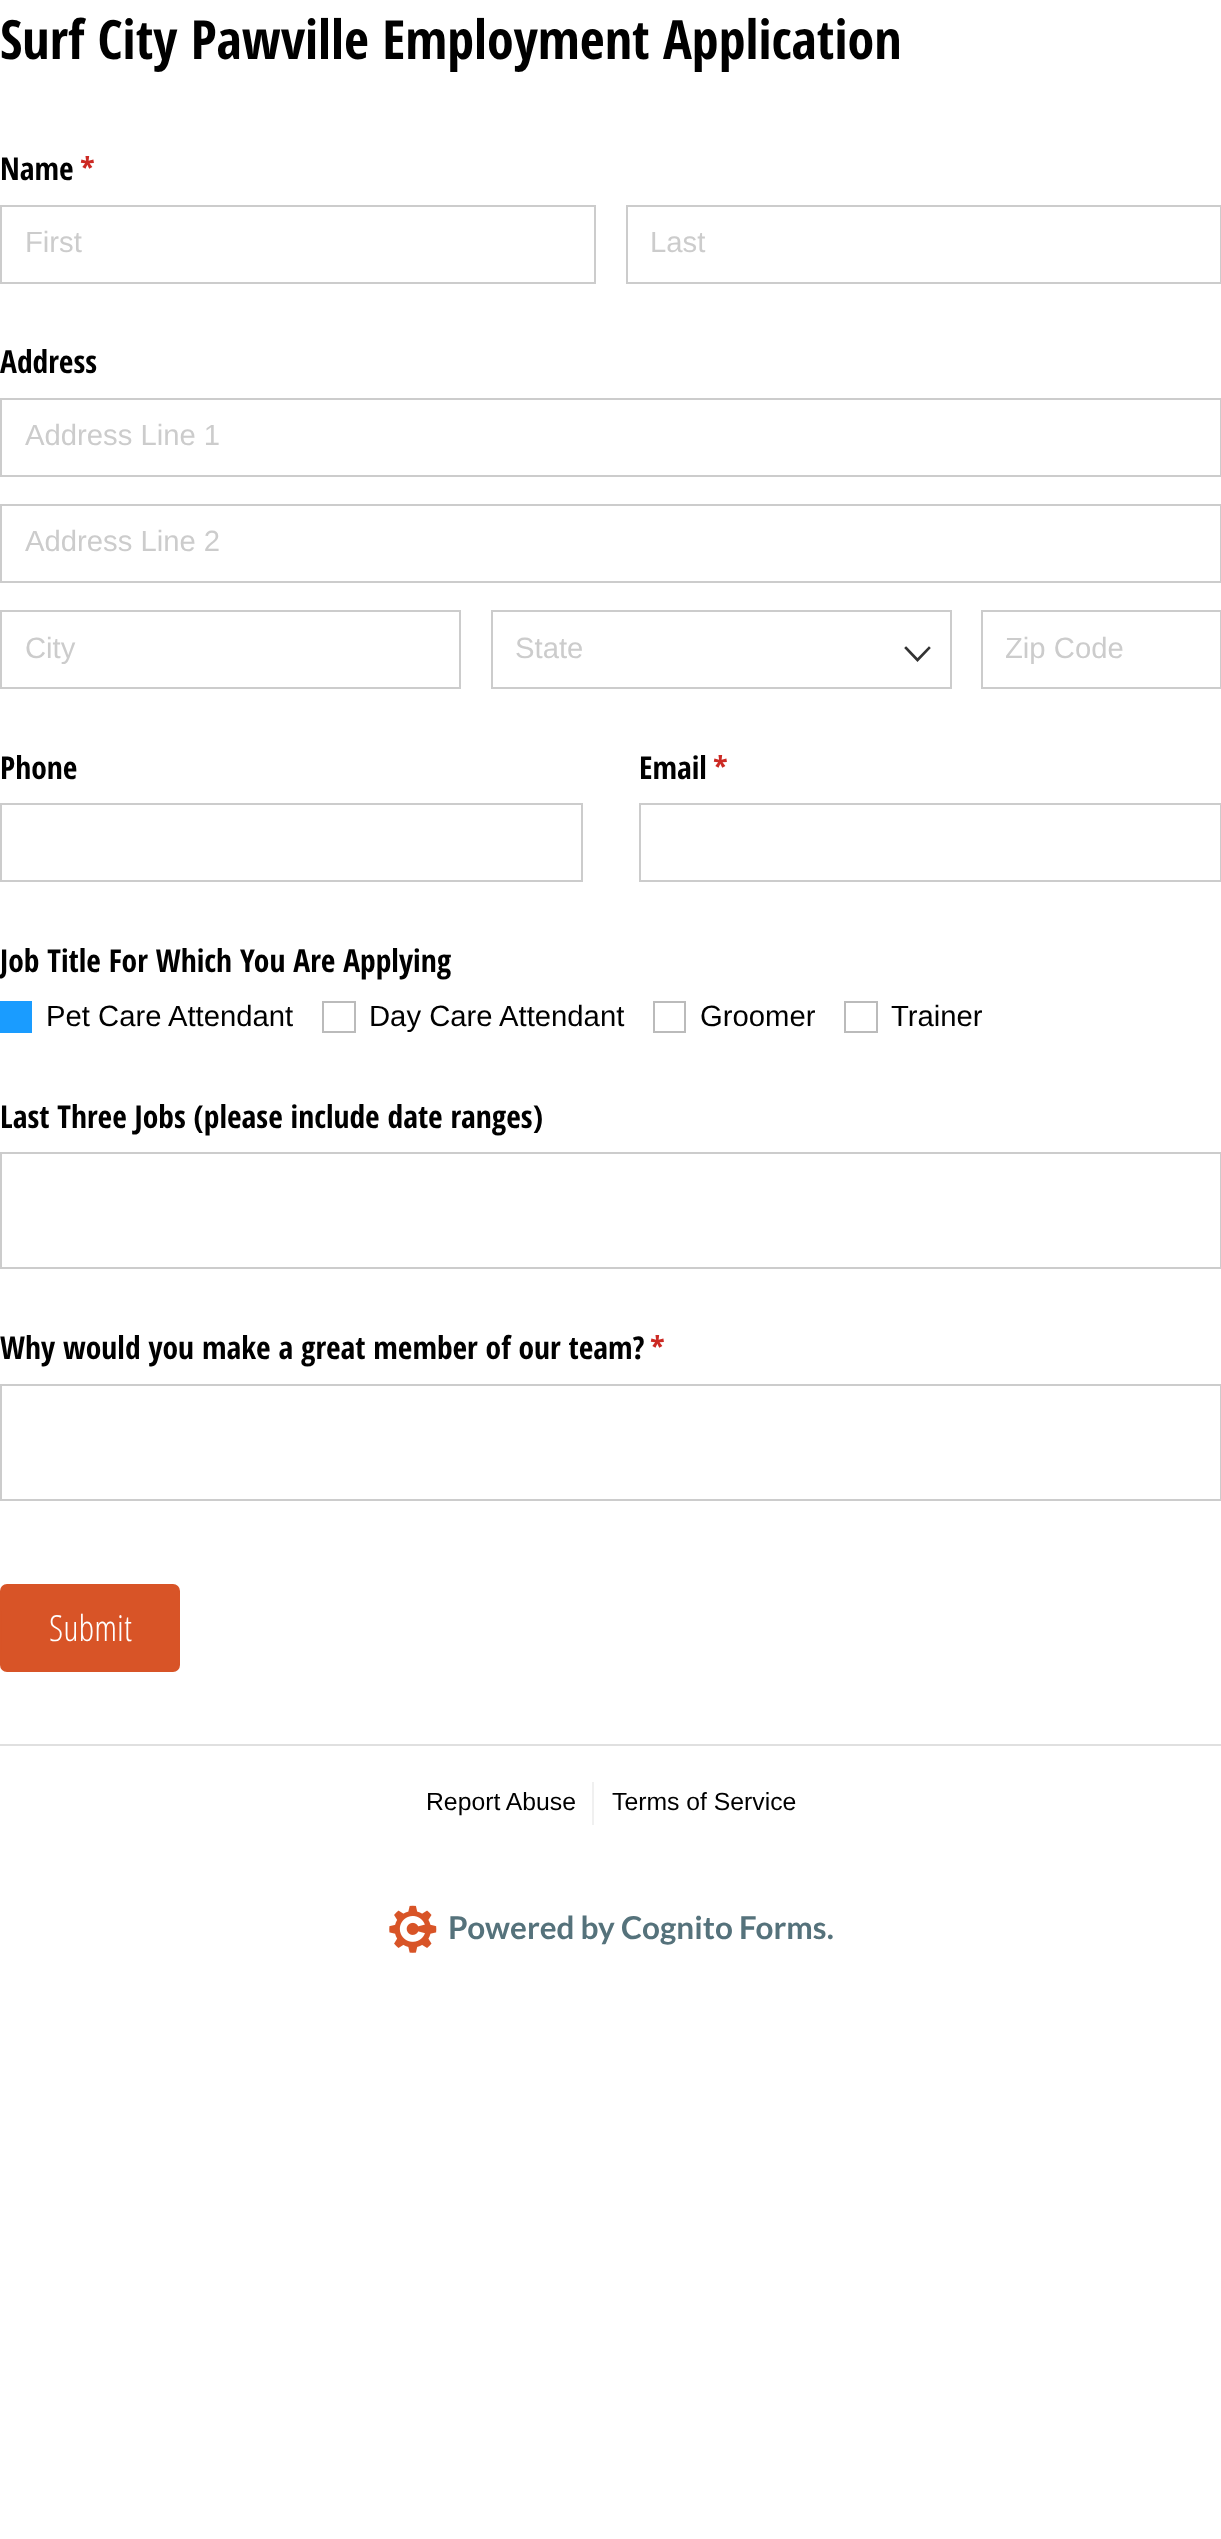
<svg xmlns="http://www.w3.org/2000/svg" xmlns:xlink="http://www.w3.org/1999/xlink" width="1221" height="2539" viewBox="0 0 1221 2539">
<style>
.cls-1{font:bold 54.1px Open Sans Condensed;fill:#000000}
.cls-2{font:bold 31.6px Open Sans Condensed;fill:#000000}
.cls-3{font:bold 31.6px Open Sans Condensed;fill:#cc2a24}
.cls-4{font:29.25px Liberation Sans;fill:#cccccc}
.cls-5{font:29.25px Liberation Sans;fill:#000000}
.cls-6{font:300 36px Open Sans Condensed;fill:#ffffff}
.cls-7{font:24.75px Liberation Sans;fill:#000000}
.cls-8{font:bold 31.5px Lato;fill:#55727b}
</style>
<defs>
<clipPath id="clip1"><rect x="1006" y="630" width="191" height="34"/></clipPath>
</defs>
<rect width="100%" height="100%" fill="#ffffff"/>
<rect fill="none" stroke="#cccccc" stroke-width="2" x="1" y="206" width="594" height="77"/>
<rect fill="none" stroke="#cccccc" stroke-width="2" x="627" y="206" width="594" height="77"/>
<rect fill="none" stroke="#cccccc" stroke-width="2" x="1" y="399" width="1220" height="77"/>
<rect fill="none" stroke="#cccccc" stroke-width="2" x="1" y="505" width="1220" height="77"/>
<rect fill="none" stroke="#cccccc" stroke-width="2" x="1" y="611" width="459" height="77"/>
<rect fill="none" stroke="#cccccc" stroke-width="2" x="492" y="611" width="459" height="77"/>
<path fill="none" stroke="#333333" stroke-width="2.6" stroke-linecap="square" d="M906 648L917.5 660L929 648"/>
<rect fill="none" stroke="#cccccc" stroke-width="2" x="982" y="611" width="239" height="77"/>
<rect fill="none" stroke="#cccccc" stroke-width="2" x="1" y="804" width="581" height="77"/>
<rect fill="none" stroke="#cccccc" stroke-width="2" x="640" y="804" width="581" height="77"/>
<rect fill="#1a9cff" x="0" y="1001" width="32" height="32"/>
<rect fill="none" stroke="#bbbbbb" stroke-width="2" x="323" y="1002" width="32" height="30"/>
<rect fill="none" stroke="#bbbbbb" stroke-width="2" x="654" y="1002" width="31" height="30"/>
<rect fill="none" stroke="#bbbbbb" stroke-width="2" x="845" y="1002" width="32" height="30"/>
<rect fill="none" stroke="#cccccc" stroke-width="2" x="1" y="1153" width="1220" height="115"/>
<rect fill="none" stroke="#cccccc" stroke-width="2" x="1" y="1385" width="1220" height="115"/>
<rect fill="#d85427" stroke="#d85427" stroke-width="2" x="1" y="1585" width="178" height="86" rx="6"/>
<rect fill="#e0e0e0" x="0" y="1744" width="1221" height="2"/>
<rect fill="#f0f0f0" x="592" y="1782" width="2" height="43"/>
<image xlink:href="image0.png" x="389" y="1905" width="48" height="48"/>
<text class="cls-1" x="0" y="59">Surf City Pawville Employment Application</text>
<text class="cls-2" x="0" y="180">Name</text>
<text class="cls-3" x="80" y="180">*</text>
<text class="cls-4" x="25" y="252">First</text>
<text class="cls-4" x="650" y="252">Last</text>
<text class="cls-2" x="0" y="373">Address</text>
<text class="cls-4" x="25" y="445">Address Line 1</text>
<text class="cls-4" x="25" y="551">Address Line 2</text>
<text class="cls-4" x="25" y="658">City</text>
<text class="cls-4" x="515" y="658">State</text>
<g clip-path="url(#clip1)">
<text class="cls-4" x="1005" y="658">Zip Code</text>
</g>
<text class="cls-2" x="0" y="779">Phone</text>
<text class="cls-2" x="639" y="779">Email</text>
<text class="cls-3" x="713" y="779">*</text>
<text class="cls-2" x="0" y="972">Job Title For Which You Are Applying</text>
<text class="cls-5" x="46" y="1026">Pet Care Attendant</text>
<text class="cls-5" x="369" y="1026">Day Care Attendant</text>
<text class="cls-5" x="700" y="1026">Groomer</text>
<text class="cls-5" x="891" y="1026">Trainer</text>
<text class="cls-2" x="0" y="1128">Last Three Jobs (please include date ranges)</text>
<text class="cls-2" x="0" y="1359">Why would you make a great member of our team?</text>
<text class="cls-3" x="650" y="1359">*</text>
<text class="cls-6" x="49" y="1641">Submit</text>
<text class="cls-7" x="426" y="1810">Report Abuse</text>
<text class="cls-7" x="612" y="1810">Terms of Service</text>
<text class="cls-8" x="448" y="1939">Powered by Cognito Forms.</text>
</svg>
